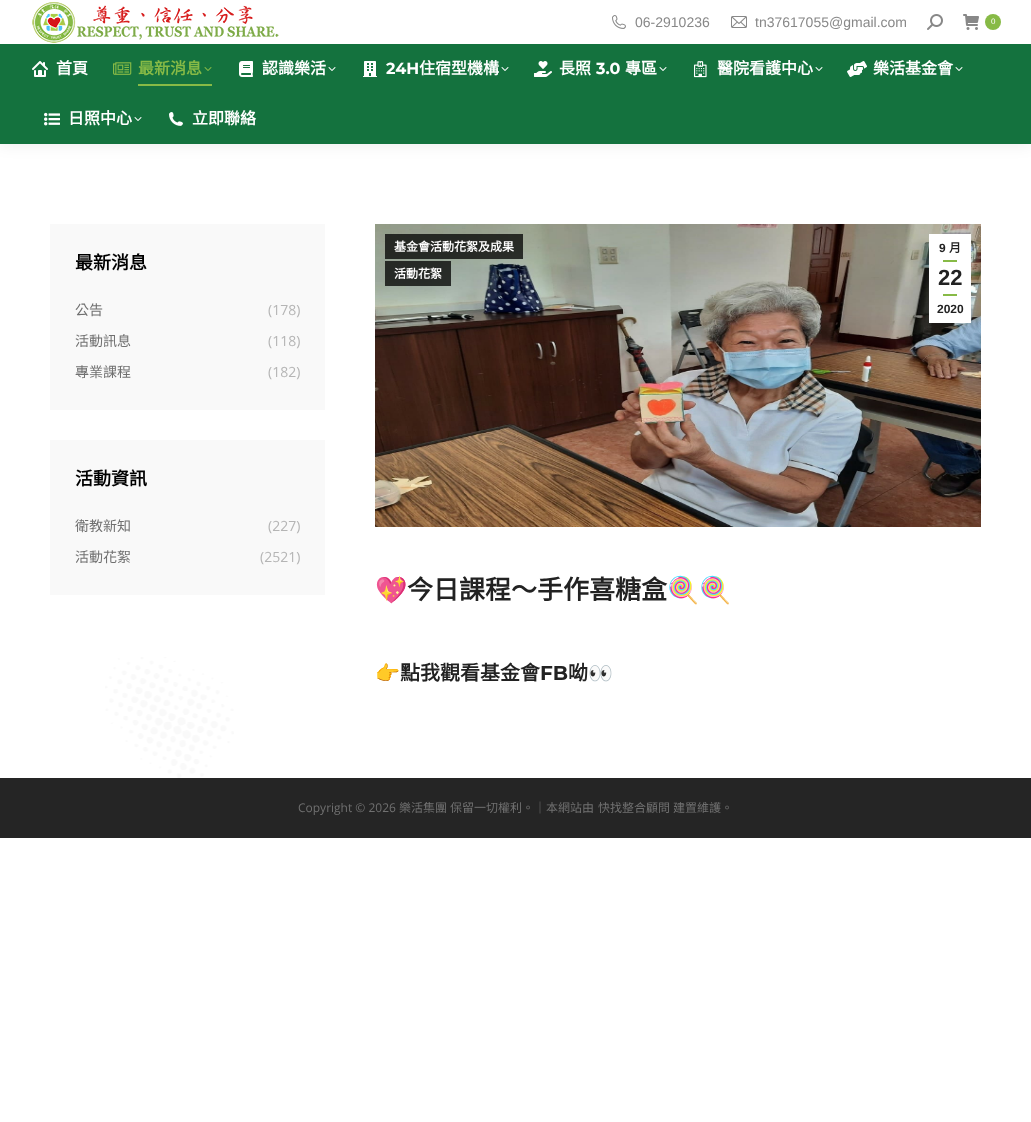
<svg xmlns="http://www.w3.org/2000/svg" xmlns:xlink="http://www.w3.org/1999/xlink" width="1031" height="1122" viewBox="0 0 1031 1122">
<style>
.cls-1{font:14px Liberation Sans;fill:#888888}
.cls-2{font:8px Liberation Sans;fill:#ffffff}
.cls-3{font:bold 16px Noto Sans CJK TC;fill:#ffffff}
.cls-4{font:bold 16px Noto Sans CJK TC;fill:#87ba46}
.cls-5{font:bold 16px Montserrat;fill:#ffffff}
.cls-6{font:bold 18px Noto Sans CJK TC;fill:#000000}
.cls-7{font:14px Noto Sans CJK TC;fill:#707070}
.cls-8{font:14px Open Sans;fill:#b5b5b5}
.cls-9{font:bold 12px Noto Sans CJK TC;fill:#ffffff}
.cls-10{font:bold 12px Liberation Sans;fill:#222222}
.cls-11{font:bold 12px Noto Sans CJK TC;fill:#222222}
.cls-12{font:bold 22px Liberation Sans;fill:#222222}
.cls-13{font:bold 26px Noto Color Emoji;fill:#222222}
.cls-14{font:bold 26px Noto Sans CJK TC;fill:#222222}
.cls-15{font:bold 20px Noto Color Emoji;fill:#222222}
.cls-16{font:bold 20px Noto Sans CJK TC;fill:#222222}
.cls-17{font:bold 20px Montserrat;fill:#222222}
.cls-18{font:12px Open Sans;fill:#707070}
.cls-19{font:12px Noto Sans CJK TC;fill:#707070}
</style>
<rect width="100%" height="100%" fill="#ffffff"/>
<image xlink:href="image0.png" x="105" y="657" width="129" height="121"/>
<rect fill="#000000" fill-opacity="0.07" filter="blur(7.5px)" x="-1" y="-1" width="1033" height="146"/>
<rect fill="#ffffff" x="0" y="0" width="1031" height="44"/>
<image xlink:href="image1.png" x="32" y="2" width="247" height="41"/>
<image xlink:href="image2.png" x="612" y="15" width="14" height="14"/>
<image xlink:href="image3.png" x="731" y="16" width="16" height="12"/>
<image xlink:href="image4.png" x="927" y="14" width="16" height="16"/>
<image xlink:href="image5.png" x="963" y="14" width="16" height="16"/>
<circle fill="#87ba46" cx="993" cy="22" r="8"/>
<rect fill="#14723e" x="0" y="44" width="1031" height="100"/>
<image xlink:href="image6.png" x="32" y="61" width="16" height="16"/>
<image xlink:href="image7.png" x="113" y="62" width="19" height="13"/>
<image xlink:href="image8.png" x="204" y="67" width="8" height="4"/>
<rect fill="#87ba46" x="138" y="84" width="74" height="2"/>
<image xlink:href="image9.png" x="239" y="61" width="14" height="16"/>
<image xlink:href="image10.png" x="328" y="67" width="8" height="4"/>
<image xlink:href="image11.png" x="363" y="61" width="14" height="16"/>
<image xlink:href="image10.png" x="501" y="67" width="8" height="4"/>
<image xlink:href="image12.png" x="534" y="61" width="18" height="16"/>
<image xlink:href="image10.png" x="659" y="67" width="8" height="4"/>
<image xlink:href="image13.png" x="694" y="61" width="13" height="17"/>
<image xlink:href="image10.png" x="815" y="67" width="8" height="4"/>
<image xlink:href="image14.png" x="847" y="61" width="20" height="16"/>
<image xlink:href="image10.png" x="955" y="67" width="8" height="4"/>
<image xlink:href="image15.png" x="44" y="112" width="16" height="14"/>
<image xlink:href="image10.png" x="134" y="117" width="8" height="4"/>
<image xlink:href="image16.png" x="169" y="112" width="14" height="14"/>
<rect fill="#f9f9f9" x="50" y="224" width="275" height="186"/>
<rect fill="#f9f9f9" x="50" y="440" width="275" height="155"/>
<image xlink:href="image17.png" x="375" y="224" width="606" height="303"/>
<rect fill="#000000" fill-opacity="0.75" x="385" y="234" width="138" height="25"/>
<rect fill="#000000" fill-opacity="0.75" x="385" y="261" width="66" height="25"/>
<rect fill="#ffffff" x="929" y="234" width="42" height="89"/>
<rect fill="#87ba46" x="943" y="260" width="14" height="2"/>
<rect fill="#87ba46" x="943" y="294" width="14" height="2"/>
<rect fill="#252525" x="0" y="778" width="1031" height="60"/>
<text class="cls-1" x="635" y="27">06-2910236</text>
<text class="cls-1" x="755" y="27">tn37617055@gmail.com</text>
<text class="cls-2" x="991" y="24">0</text>
<text class="cls-3" x="56" y="74">首頁</text>
<text class="cls-4" x="138" y="74">最新消息</text>
<text class="cls-3" x="262" y="74">認識樂活</text>
<text class="cls-5" x="386" y="74">24H</text>
<text class="cls-3" x="419" y="74">住宿型機構</text>
<text class="cls-3" x="559" y="74">長照</text>
<text class="cls-5" x="596" y="74">3.0</text>
<text class="cls-3" x="625" y="74">專區</text>
<text class="cls-3" x="717" y="74">醫院看護中心</text>
<text class="cls-3" x="873" y="74">樂活基金會</text>
<text class="cls-3" x="68" y="124">日照中心</text>
<text class="cls-3" x="192" y="124">立即聯絡</text>
<text class="cls-6" x="75" y="269">最新消息</text>
<text class="cls-7" x="75" y="315">公告</text>
<text class="cls-8" x="268" y="315">(178)</text>
<text class="cls-7" x="75" y="346">活動訊息</text>
<text class="cls-8" x="268" y="346">(118)</text>
<text class="cls-7" x="75" y="377">專業課程</text>
<text class="cls-8" x="268" y="377">(182)</text>
<text class="cls-6" x="75" y="485">活動資訊</text>
<text class="cls-7" x="75" y="531">衛教新知</text>
<text class="cls-8" x="268" y="531">(227)</text>
<text class="cls-7" x="75" y="562">活動花絮</text>
<text class="cls-8" x="260" y="562">(2521)</text>
<text class="cls-9" x="394" y="251">基金會活動花絮及成果</text>
<text class="cls-9" x="394" y="278">活動花絮</text>
<text class="cls-10" x="939" y="252">9</text>
<text class="cls-11" x="949" y="252">月</text>
<text class="cls-12" x="938" y="285">22</text>
<text class="cls-10" x="937" y="313">2020</text>
<text class="cls-13" x="375" y="599">💖</text>
<text class="cls-14" x="407" y="599">今日課程～手作喜糖盒</text>
<text class="cls-13" x="667" y="599">🍭🍭</text>
<text class="cls-15" x="375" y="680">👉️</text>
<text class="cls-16" x="400" y="680">點我觀看基金會</text>
<text class="cls-17" x="540" y="680">FB</text>
<text class="cls-16" x="568" y="680">呦</text>
<text class="cls-15" x="588" y="680">👀</text>
<text class="cls-18" x="298" y="812">Copyright © 2026</text>
<text class="cls-19" x="399" y="812">樂活集團</text>
<text class="cls-19" x="450" y="812">保留一切權利。｜本網站由</text>
<text class="cls-19" x="598" y="812">快找整合顧問</text>
<text class="cls-19" x="673" y="812">建置維護。</text>
</svg>
